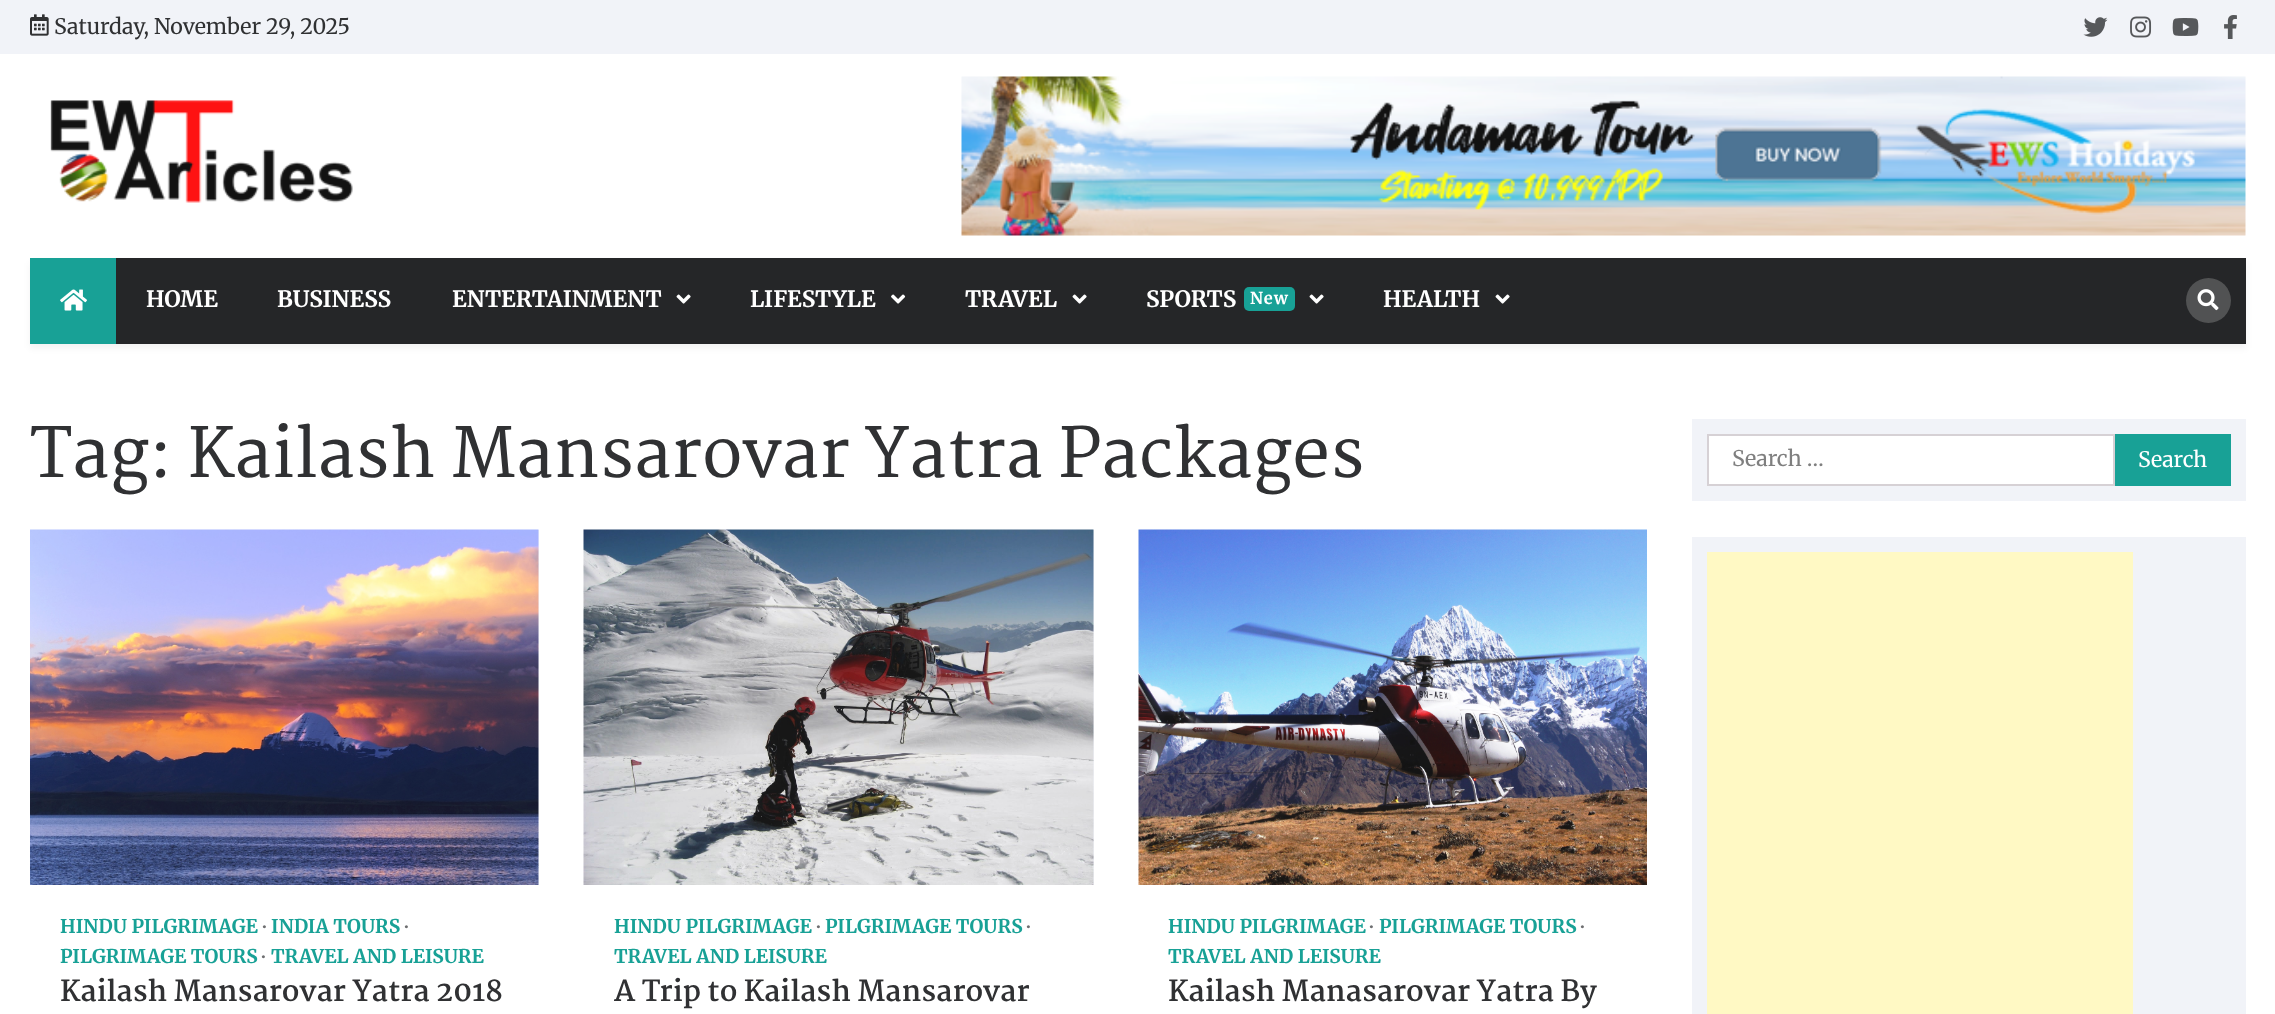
<svg xmlns="http://www.w3.org/2000/svg" xmlns:xlink="http://www.w3.org/1999/xlink" width="2275" height="1014" viewBox="0 0 2275 1014">
<style>
.cls-1{font:21.4px Merriweather;fill:#303133}
.cls-2{font:bold 22.5px Merriweather;fill:#ffffff}
.cls-3{font:bold 16.5px Merriweather;letter-spacing:1px;fill:#ffffff}
.cls-4{font:600 67.4px Martel;fill:#303133}
.cls-5{font:bold 19px Merriweather;fill:#18a196}
.cls-6{font:bold 19px Liberation Serif;fill:#6e6f71}
.cls-7{font:bold 28.5px Martel;fill:#303133}
.cls-8{font:21.5px Merriweather;fill:#7f7f7f}
.cls-9{font:21.4px Merriweather;fill:#ffffff}
</style>
<rect width="100%" height="100%" fill="#ffffff"/>
<rect fill="#f1f3f8" x="0" y="0" width="2275" height="54"/>
<image xlink:href="image0.png" x="30" y="14" width="19" height="22"/>
<image xlink:href="image1.png" x="2083" y="17" width="25" height="20"/>
<image xlink:href="image2.png" x="2130" y="16" width="22" height="22"/>
<image xlink:href="image3.png" x="2172" y="18" width="27" height="18"/>
<image xlink:href="image4.png" x="2224" y="15" width="13" height="24"/>
<image xlink:href="image5.png" x="50" y="100" width="303" height="103"/>
<image xlink:href="image6.png" x="961" y="76" width="1285" height="160"/>
<rect fill="#1b1b1b" fill-opacity="0.06" filter="blur(3px)" x="30" y="263" width="2216" height="85"/>
<rect fill="#252628" x="116" y="258" width="2130" height="86"/>
<rect fill="#18a196" x="30" y="258" width="86" height="86"/>
<image xlink:href="image7.png" x="60" y="289" width="27" height="22"/>
<image xlink:href="image8.png" x="676" y="294" width="15" height="10"/>
<image xlink:href="image9.png" x="891" y="294" width="15" height="10"/>
<image xlink:href="image8.png" x="1072" y="294" width="15" height="10"/>
<rect fill="#18a196" x="1244" y="287" width="51" height="24" rx="5"/>
<image xlink:href="image8.png" x="1309" y="294" width="15" height="10"/>
<image xlink:href="image8.png" x="1495" y="294" width="15" height="10"/>
<circle fill="#515253" cx="2208.5" cy="300.5" r="22.5"/>
<image xlink:href="image10.png" x="2197" y="289" width="22" height="22"/>
<rect fill="#f1f3f8" x="538" y="530" width="1" height="355"/>
<image xlink:href="image11.png" x="30" y="529" width="509" height="356"/>
<rect fill="#f1f3f8" x="1093" y="530" width="1" height="355"/>
<image xlink:href="image12.png" x="583" y="529" width="511" height="356"/>
<image xlink:href="image13.png" x="1138" y="529" width="509" height="356"/>
<rect fill="#f1f3f8" x="1692" y="419" width="554" height="82"/>
<rect fill="#ffffff" stroke="#d6d1d5" stroke-width="2" x="1708" y="435" width="406" height="50"/>
<rect fill="#18a196" x="2115" y="434" width="116" height="52"/>
<rect fill="#f1f3f8" x="1692" y="537" width="554" height="477"/>
<rect fill="#fff9c4" x="1707" y="552" width="426" height="462"/>
<text class="cls-1" x="54" y="34">Saturday, November 29, 2025</text>
<text class="cls-2" x="146" y="307">HOME</text>
<text class="cls-2" x="277" y="307">BUSINESS</text>
<text class="cls-2" x="452" y="307">ENTERTAINMENT</text>
<text class="cls-2" x="750" y="307">LIFESTYLE</text>
<text class="cls-2" x="965" y="307">TRAVEL</text>
<text class="cls-2" x="1146" y="307">SPORTS</text>
<text class="cls-3" x="1250" y="304">New</text>
<text class="cls-2" x="1383" y="307">HEALTH</text>
<text class="cls-4" x="30" y="477">Tag: Kailash Mansarovar Yatra Packages</text>
<text class="cls-5" x="60" y="933">HINDU PILGRIMAGE</text>
<text class="cls-6" x="262" y="933">∙</text>
<text class="cls-5" x="271" y="933">INDIA TOURS</text>
<text class="cls-6" x="404" y="933">∙</text>
<text class="cls-5" x="60" y="963">PILGRIMAGE TOURS</text>
<text class="cls-6" x="261" y="963">∙</text>
<text class="cls-5" x="271" y="963">TRAVEL AND LEISURE</text>
<text class="cls-7" x="60" y="1001">Kailash Mansarovar Yatra 2018</text>
<text class="cls-5" x="614" y="933">HINDU PILGRIMAGE</text>
<text class="cls-6" x="816" y="933">∙</text>
<text class="cls-5" x="825" y="933">PILGRIMAGE TOURS</text>
<text class="cls-6" x="1026" y="933">∙</text>
<text class="cls-5" x="614" y="963">TRAVEL AND LEISURE</text>
<text class="cls-7" x="614" y="1001">A Trip to Kailash Mansarovar</text>
<text class="cls-5" x="1168" y="933">HINDU PILGRIMAGE</text>
<text class="cls-6" x="1369" y="933">∙</text>
<text class="cls-5" x="1379" y="933">PILGRIMAGE TOURS</text>
<text class="cls-6" x="1580" y="933">∙</text>
<text class="cls-5" x="1168" y="963">TRAVEL AND LEISURE</text>
<text class="cls-7" x="1168" y="1001">Kailash Manasarovar Yatra By</text>
<text class="cls-8" x="1732" y="466">Search …</text>
<text class="cls-9" x="2138" y="467">Search</text>
</svg>
